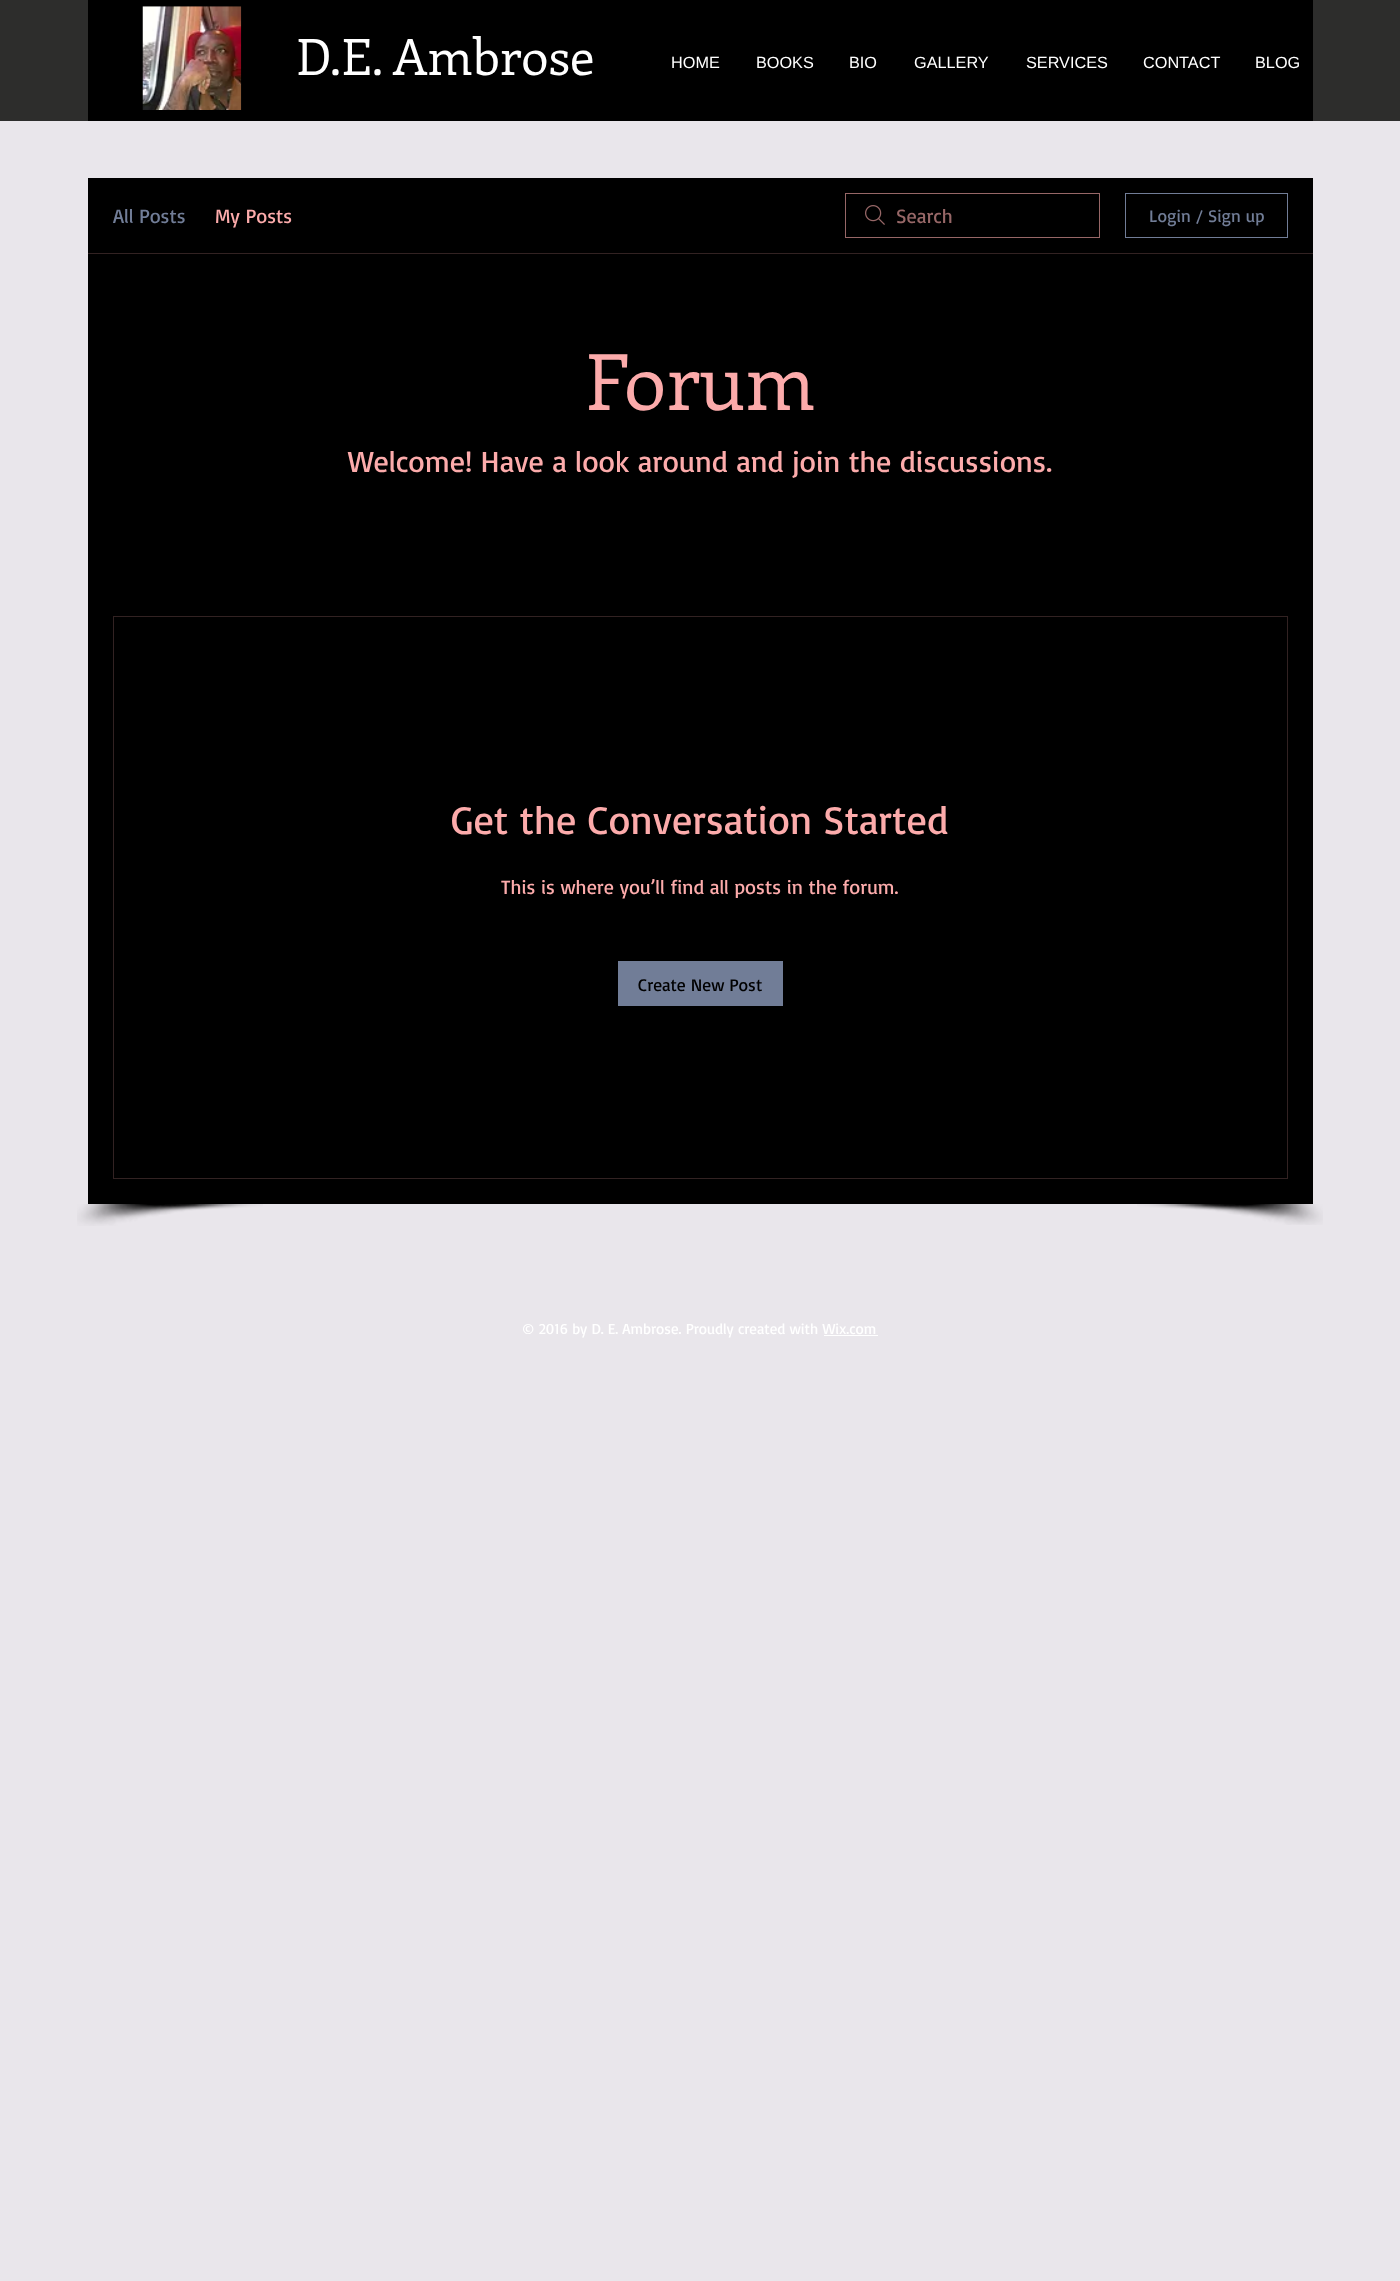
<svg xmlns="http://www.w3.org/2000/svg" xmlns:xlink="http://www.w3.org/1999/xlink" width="1400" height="2281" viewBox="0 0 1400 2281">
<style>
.cls-1{font:50px Enriqueta;fill:#ffffff}
.cls-2{font:16.25px Liberation Sans;fill:#ffffff}
.cls-3{font:20px Basic;fill:#717d97}
.cls-4{font:20px Basic;fill:#fcabab}
.cls-5{font:20px Basic;fill:#976767}
.cls-6{font:17.5px Basic;fill:#717d97}
.cls-7{font:77.5px Enriqueta;fill:#fcabab}
.cls-8{font:30px Basic;fill:#fcabab}
.cls-9{font:40px Basic;fill:#fcabab}
.cls-10{font:17.5px Basic;fill:#000000}
.cls-11{font:15px Basic;fill:#ffffff}
</style>
<rect width="100%" height="100%" fill="#e9e6eb"/>
<rect fill="#2d2d2c" x="0" y="0" width="1400" height="121"/>
<rect fill="#000000" x="88" y="0" width="1225" height="121"/>
<image xlink:href="image0.png" x="142" y="6" width="100" height="104"/>
<rect fill="#000000" x="88" y="178" width="1225" height="1026"/>
<rect fill="#322222" x="88" y="253" width="1225" height="1"/>
<image xlink:href="image1.png" x="865" y="205" width="20" height="20"/>
<rect fill="none" stroke="#976767" x="845.5" y="193.5" width="254" height="44"/>
<rect fill="none" stroke="#717d97" x="1125.5" y="193.5" width="162" height="44"/>
<rect fill="none" stroke="#322222" x="113.5" y="616.5" width="1174" height="562"/>
<rect fill="#717d97" x="618" y="961" width="165" height="45"/>
<image xlink:href="image2.png" x="77" y="1204" width="186" height="22"/>
<image xlink:href="image3.png" x="1137" y="1204" width="186" height="21"/>
<rect fill="#ffffff" x="824" y="1335" width="54" height="1"/>
<text class="cls-1" x="296" y="75">D.E. Ambrose</text>
<text class="cls-2" x="671" y="68">HOME</text>
<text class="cls-2" x="756" y="68">BOOKS</text>
<text class="cls-2" x="849" y="68">BIO</text>
<text class="cls-2" x="914" y="68">GALLERY</text>
<text class="cls-2" x="1026" y="68">SERVICES</text>
<text class="cls-2" x="1143" y="68">CONTACT</text>
<text class="cls-2" x="1255" y="68">BLOG</text>
<text class="cls-3" x="113" y="223">All Posts</text>
<text class="cls-4" x="215" y="223">My Posts</text>
<text class="cls-5" x="896" y="223">Search</text>
<text class="cls-6" x="1149" y="222">Login / Sign up</text>
<text class="cls-7" x="585" y="410">Forum</text>
<text class="cls-8" x="348" y="472">Welcome! Have a look around and join the discussions.</text>
<text class="cls-9" x="451" y="834">Get the Conversation Started</text>
<text class="cls-4" x="501" y="894">This is where you’ll find all posts in the forum.</text>
<text class="cls-10" x="638" y="991">Create New Post</text>
<text class="cls-11" x="522" y="1334">© 2016 by D. E. Ambrose. Proudly created with Wix.com</text>
</svg>
